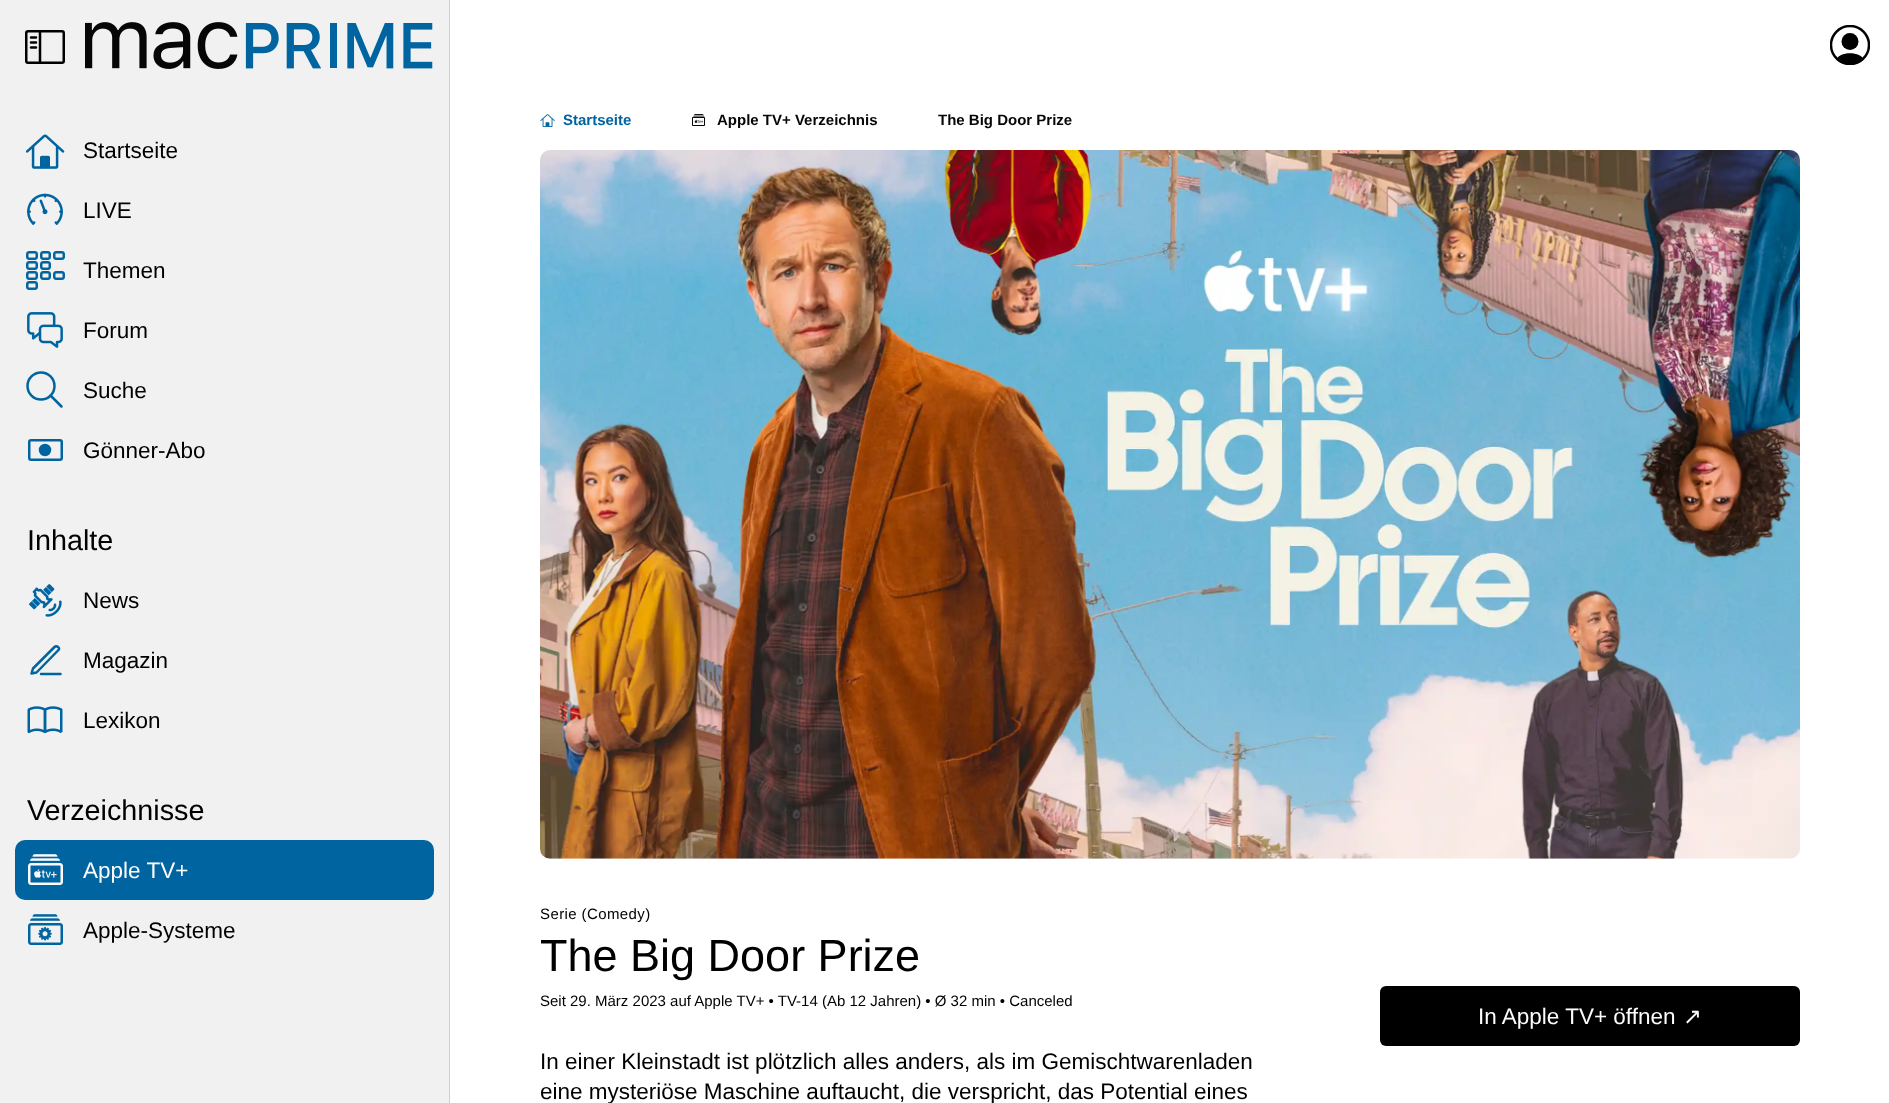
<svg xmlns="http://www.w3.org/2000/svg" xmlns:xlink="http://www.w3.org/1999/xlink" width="1889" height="1103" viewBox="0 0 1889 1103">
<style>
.cls-1{font:22.5px Liberation Sans;fill:#000000}
.cls-2{font:28.75px Liberation Sans;fill:#000000}
.cls-3{font:22.5px Liberation Sans;fill:#fcfcfc}
.cls-4{font:bold 15px Liberation Sans;fill:#0064a1}
.cls-5{font:bold 15px Liberation Sans;fill:#060606}
.cls-6{font:15px Liberation Sans;letter-spacing:0.4px;fill:#000000}
.cls-7{font:45px Liberation Sans;fill:#000000}
.cls-8{font:15px Liberation Sans;fill:#000000}
.cls-9{font:22.5px DejaVu Sans;fill:#fcfcfc}
</style>
<defs>
<clipPath id="clip1"><rect x="1830" y="25" width="40" height="40"/></clipPath>
</defs>
<rect width="100%" height="100%" fill="#ffffff"/>
<rect fill="#f1f1f1" x="0" y="0" width="449" height="1103"/>
<rect fill="none" stroke="#000000" stroke-width="2.5" x="26.25" y="31.25" width="37.5" height="31.5" rx="1.75"/>
<path fill="none" stroke="#000000" stroke-width="2.5" stroke-linecap="round" stroke-linejoin="bevel" d="M40 31.5V62.5M31 37.5H36M31 42.5H36M31 47.5H36"/>
<image xlink:href="image0.png" x="85" y="22" width="348" height="47"/>
<g clip-path="url(#clip1)">
<circle fill="none" stroke="#000000" stroke-width="2.5" cx="1850" cy="45" r="19"/>
</g>
<path fill="#000000" fill-rule="evenodd" d="M1863.5 60C1856 66.5 1844 66.5 1836.5 60C1838 51 1862 51 1863.5 60Z"/>
<circle fill="#000000" cx="1850" cy="41.5" r="8.5"/>
<rect fill="#cfcfcf" x="449" y="0" width="1" height="1103"/>
<image xlink:href="image1.png" x="25" y="134" width="40" height="35"/>
<image xlink:href="image2.png" x="27" y="193" width="36" height="32"/>
<image xlink:href="image3.png" x="26" y="251" width="39" height="39"/>
<image xlink:href="image4.png" x="27" y="312" width="36" height="36"/>
<circle fill="none" stroke="#0064a1" stroke-width="2.5" cx="41" cy="386" r="13.5"/>
<path fill="none" stroke="#0064a1" stroke-width="2.5" stroke-linecap="round" d="M50.5 395.5L61.5 406.5"/>
<rect fill="none" stroke="#0064a1" stroke-width="2.5" x="29.25" y="440.25" width="32.5" height="19.5" rx="1.75"/>
<circle fill="#0064a1" stroke="#0064a1" stroke-width="2.5" cx="45" cy="450" r="5"/>
<image xlink:href="image5.png" x="29" y="584" width="33" height="33"/>
<path fill="none" stroke="#0064a1" stroke-width="2.5" stroke-linecap="round" stroke-linejoin="round" d="M54.5 647C55.5 646 57 646 58 647C59.5 648 59.5 649.5 58 650.5L36.5 672.5L31.5 673.5L33 668.5ZM41 674H60.5"/>
<image xlink:href="image6.png" x="27" y="706" width="36" height="28"/>
<rect fill="#0064a1" x="15" y="840" width="419" height="60" rx="10"/>
<image xlink:href="image7.png" x="28" y="854" width="35" height="31"/>
<image xlink:href="image8.png" x="28" y="914" width="35" height="31"/>
<image xlink:href="image9.png" x="540" y="114" width="15" height="13"/>
<image xlink:href="image10.png" x="692" y="114" width="13" height="12"/>
<image xlink:href="image11.png" x="540" y="150" width="1260" height="709"/>
<rect fill="#000000" x="1380" y="986" width="420" height="60" rx="6"/>
<text class="cls-1" x="83" y="158">Startseite</text>
<text class="cls-1" x="83" y="218">LIVE</text>
<text class="cls-1" x="83" y="278">Themen</text>
<text class="cls-1" x="83" y="338">Forum</text>
<text class="cls-1" x="83" y="398">Suche</text>
<text class="cls-1" x="83" y="458">Gönner-Abo</text>
<text class="cls-2" x="27" y="550">Inhalte</text>
<text class="cls-1" x="83" y="608">News</text>
<text class="cls-1" x="83" y="668">Magazin</text>
<text class="cls-1" x="83" y="728">Lexikon</text>
<text class="cls-2" x="27" y="820">Verzeichnisse</text>
<text class="cls-3" x="83" y="878">Apple TV+</text>
<text class="cls-1" x="83" y="938">Apple-Systeme</text>
<text class="cls-4" x="563" y="125">Startseite</text>
<text class="cls-5" x="717" y="125">Apple TV+ Verzeichnis</text>
<text class="cls-5" x="938" y="125">The Big Door Prize</text>
<text class="cls-6" x="540" y="919">Serie (Comedy)</text>
<text class="cls-7" x="540" y="971">The Big Door Prize</text>
<text class="cls-8" x="540" y="1006">Seit 29. März 2023 auf Apple TV+ • TV-14 (Ab 12 Jahren) • Ø 32 min • Canceled</text>
<text class="cls-1"><tspan x="540" y="1069">In einer Kleinstadt ist plötzlich alles anders, als im Gemischtwarenladen</tspan><tspan x="540" y="1099">eine mysteriöse Maschine auftaucht, die verspricht, das Potential eines</tspan></text>
<text class="cls-3" x="1478" y="1024">In Apple TV+ öffnen</text>
<text class="cls-9" x="1683" y="1024">↗</text>
</svg>
